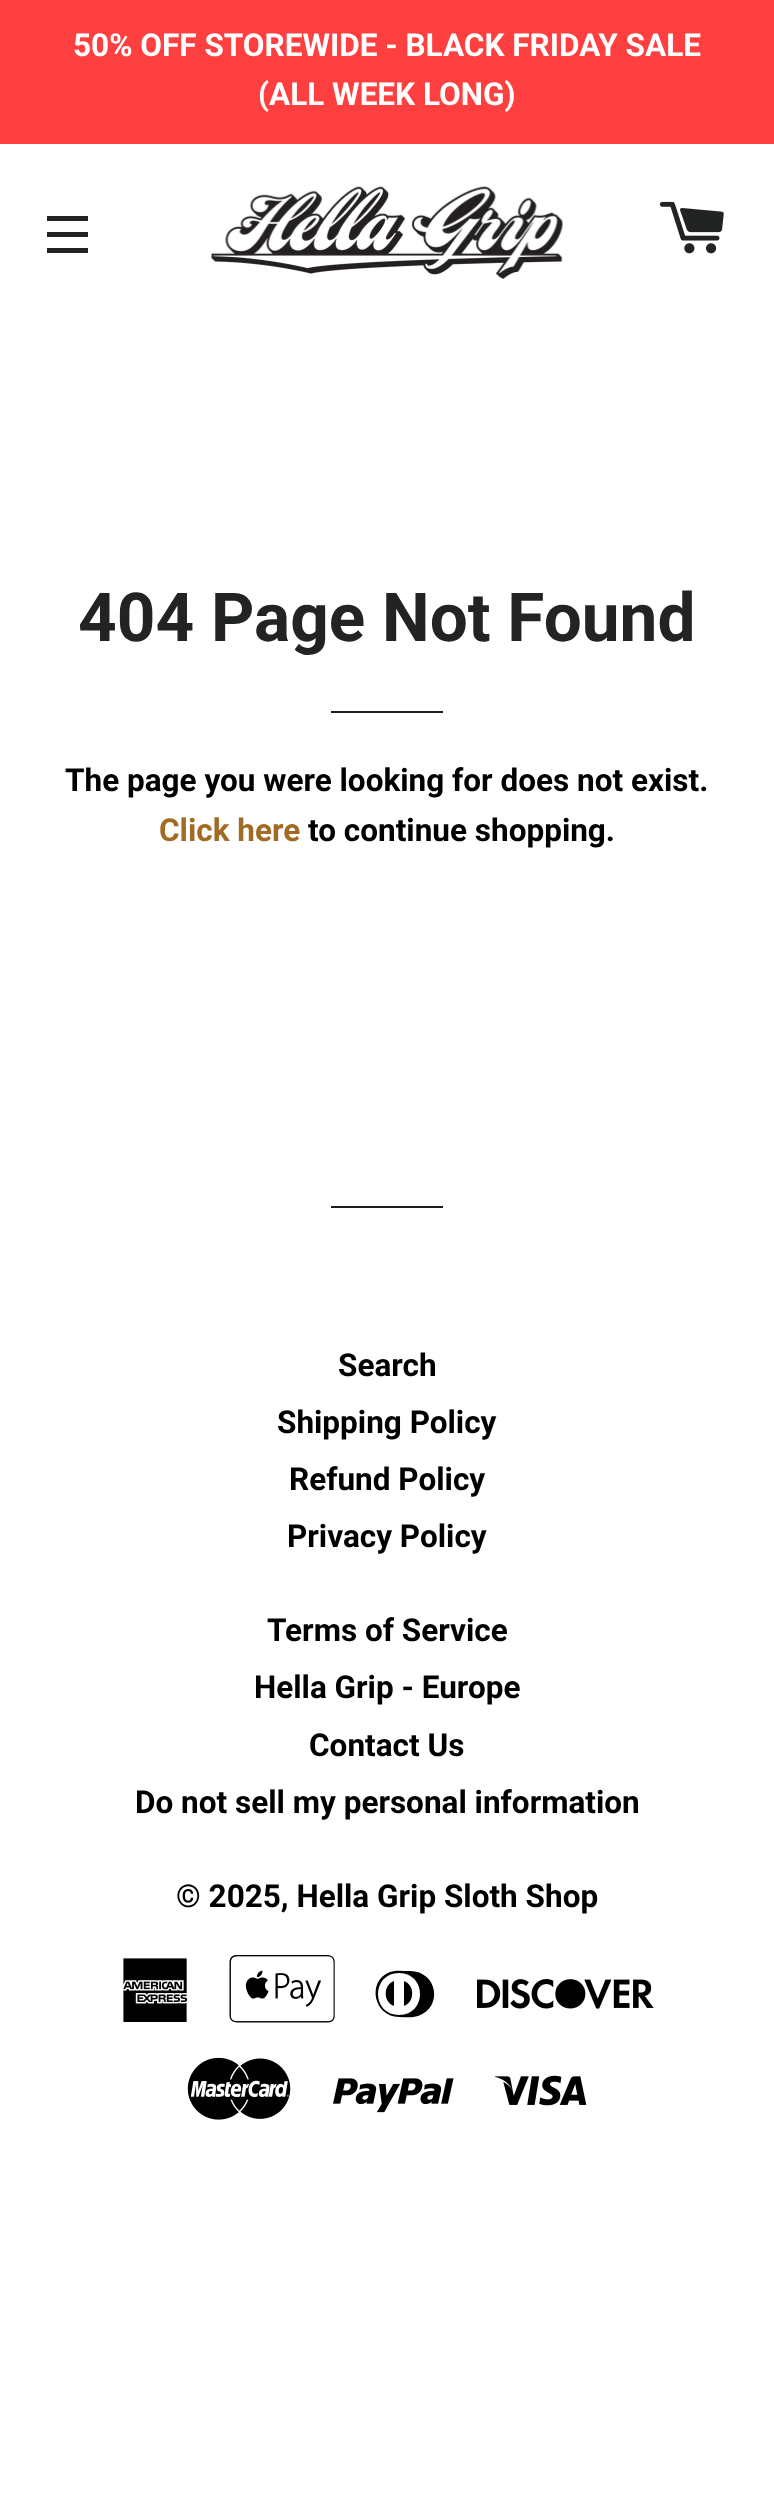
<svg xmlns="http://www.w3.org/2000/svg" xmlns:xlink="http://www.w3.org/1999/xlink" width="774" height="2513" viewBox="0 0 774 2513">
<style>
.cls-1{font:bold 31.5px Roboto;fill:#ffffff}
.cls-2{font:bold 67.5px Roboto;fill:#222323}
.cls-3{font:bold 31.5px Roboto;fill:#000000}
.cls-4{font:bold 31.5px Roboto;fill:#a26b25}
</style>
<rect width="100%" height="100%" fill="#ffffff"/>
<rect fill="#fe3f3f" x="0" y="0" width="774" height="144"/>
<rect fill="#222323" x="47" y="216" width="41" height="5"/>
<rect fill="#222323" x="47" y="232" width="41" height="5"/>
<rect fill="#222323" x="47" y="248" width="41" height="5"/>
<image xlink:href="image0.png" x="211" y="186" width="352" height="93"/>
<image xlink:href="image1.png" x="659" y="201" width="65" height="53"/>
<rect fill="#1c1d1d" x="331" y="711" width="112" height="2"/>
<rect fill="#1c1d1d" x="331" y="1206" width="112" height="2"/>
<image xlink:href="image2.png" x="123" y="1958" width="65" height="64"/>
<image xlink:href="image3.png" x="229" y="1955" width="106" height="68"/>
<path fill="#000000" d="M410 1971C437 1971 444 2007 418 2016C412 2018 405 2017 399 2017C374 2017 366 1981 390 1972C396 1970 403 1971 410 1971ZM399 2015C427 2015 427 1973 399 1973C371 1973 371 2015 399 2015ZM394 2006C383 2002 383 1985 394 1981ZM404 1981C415 1985 415 2002 404 2006Z"/>
<image xlink:href="image4.png" x="477" y="1979" width="177" height="30"/>
<image xlink:href="image5.png" x="187" y="2057" width="104" height="63"/>
<image xlink:href="image6.png" x="333" y="2078" width="121" height="35"/>
<image xlink:href="image7.png" x="495" y="2075" width="92" height="31"/>
<text class="cls-1" x="73" y="56">50% OFF STOREWIDE - BLACK FRIDAY SALE</text>
<text class="cls-1" x="258" y="105">(ALL WEEK LONG)</text>
<text class="cls-2" x="78" y="641">404 Page Not Found</text>
<text class="cls-3" x="65" y="791">The page you were looking for does not exist.</text>
<text class="cls-4" x="159" y="841">Click here</text>
<text class="cls-3" x="308" y="841">to continue shopping.</text>
<text class="cls-3" x="338" y="1376">Search</text>
<text class="cls-3" x="277" y="1433">Shipping Policy</text>
<text class="cls-3" x="289" y="1490">Refund Policy</text>
<text class="cls-3" x="287" y="1547">Privacy Policy</text>
<text class="cls-3" x="267" y="1641">Terms of Service</text>
<text class="cls-3" x="254" y="1698">Hella Grip - Europe</text>
<text class="cls-3" x="309" y="1756">Contact Us</text>
<text class="cls-3" x="135" y="1813">Do not sell my personal information</text>
<text class="cls-3" x="176" y="1907">© 2025, Hella Grip Sloth Shop</text>
</svg>
